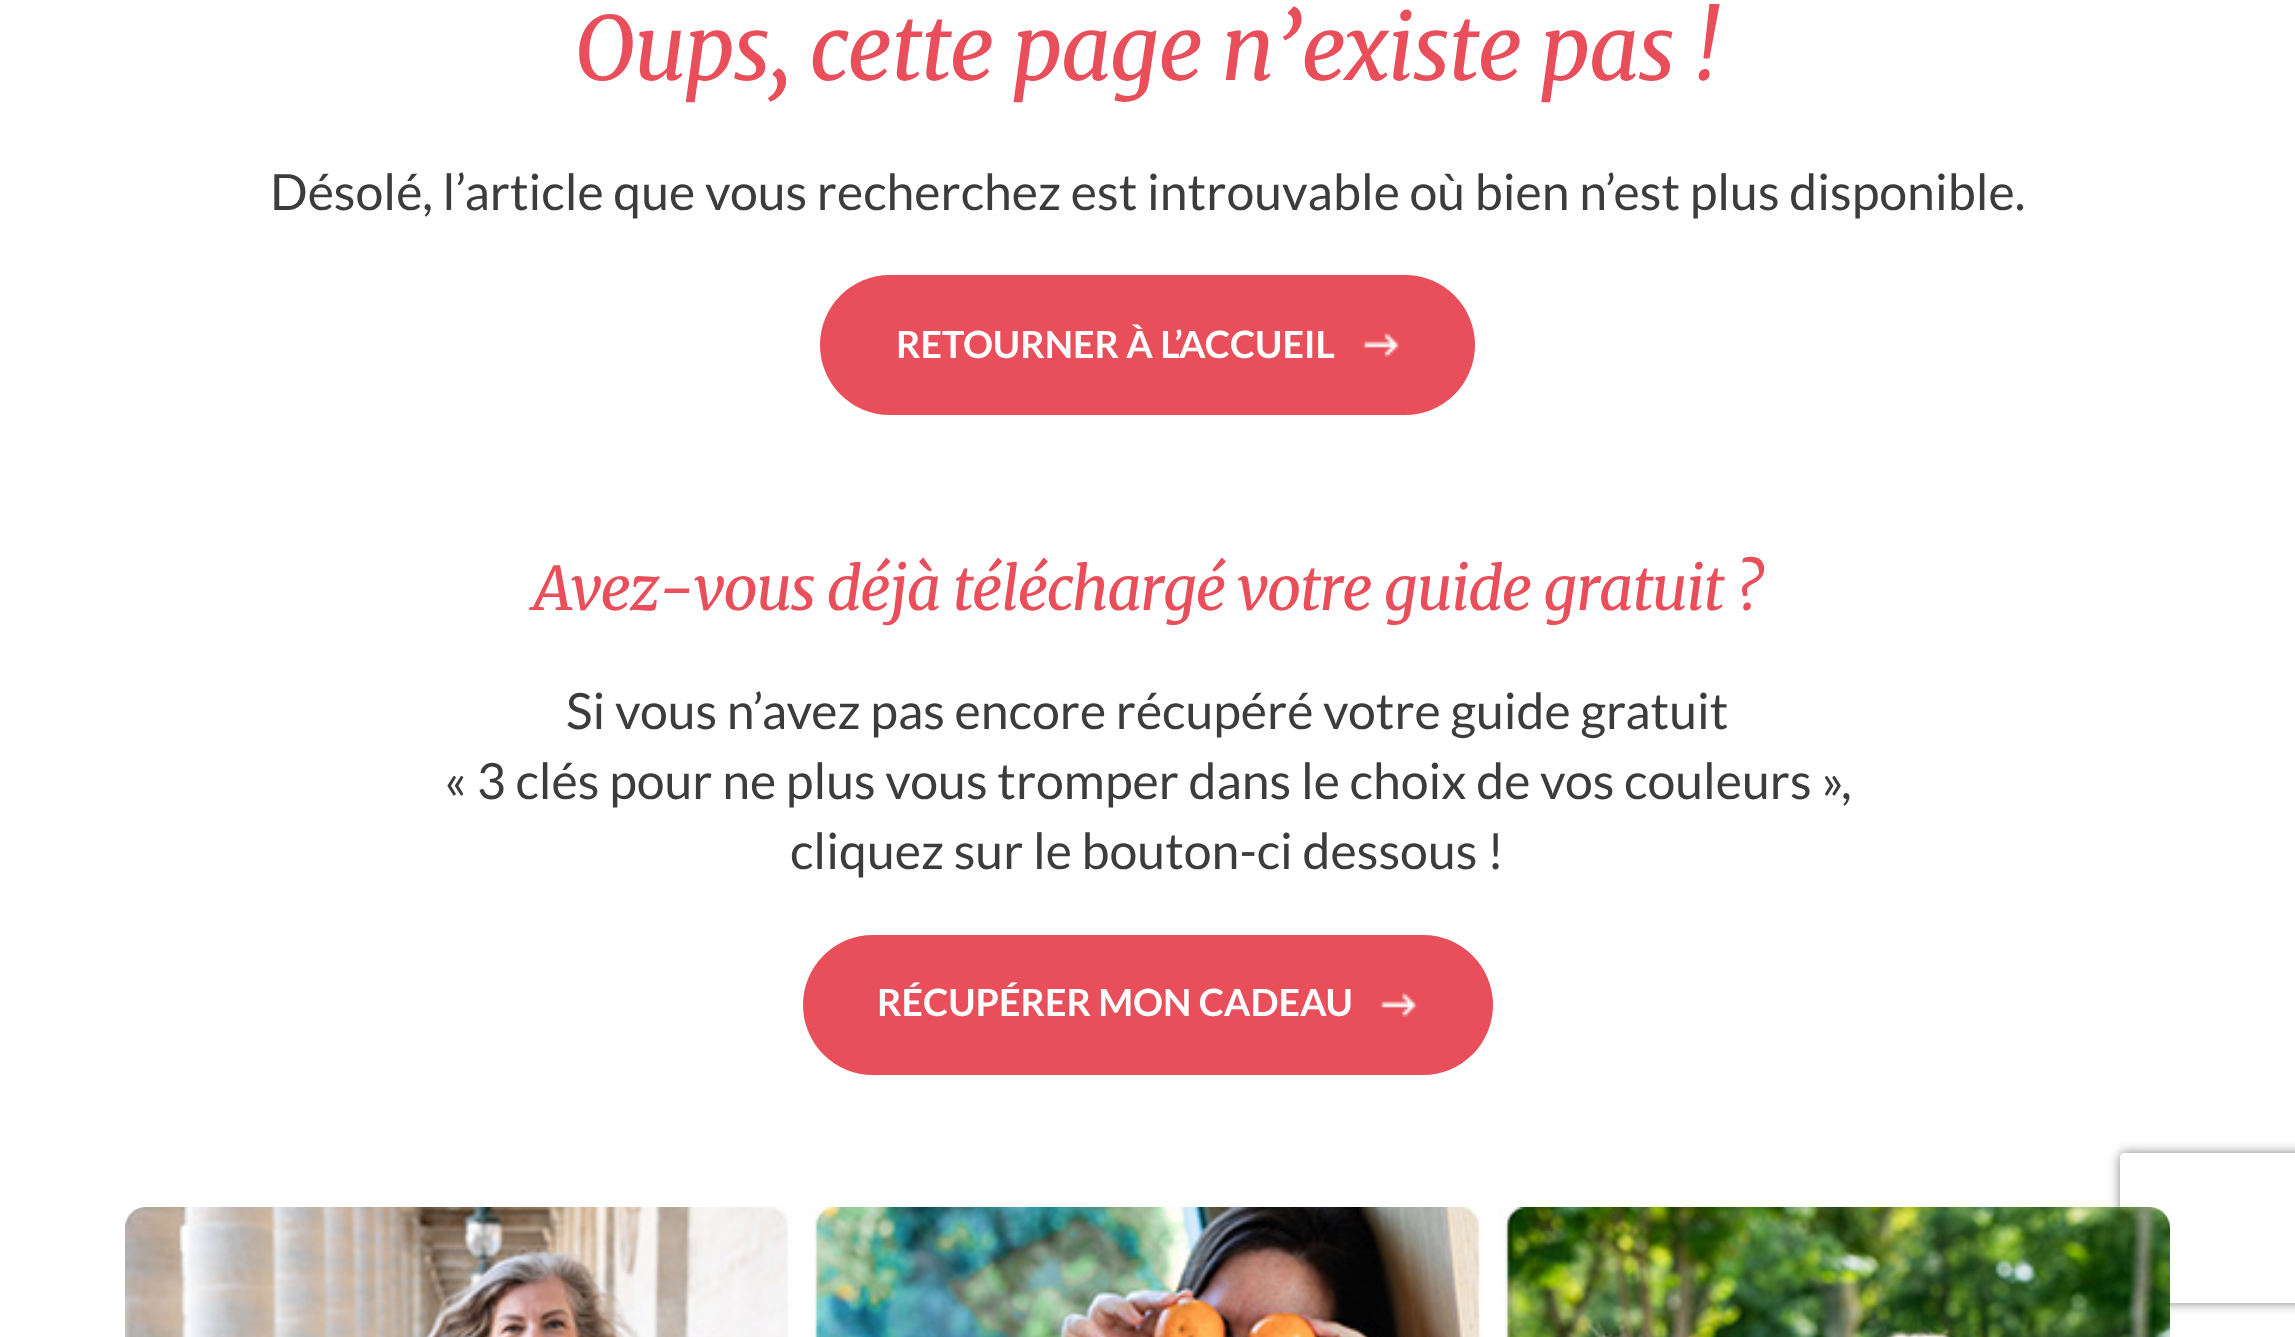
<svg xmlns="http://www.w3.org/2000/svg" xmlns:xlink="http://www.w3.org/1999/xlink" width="2295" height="1337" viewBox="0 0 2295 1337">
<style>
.cls-1{font:italic 87.5px Merriweather;letter-spacing:-1.75px;fill:#e94f5a}
.cls-2{font:50px Lato;fill:#3c3c3c}
.cls-3{font:bold 37.5px Lato;fill:#ffffff}
.cls-4{font:italic 60px Merriweather;letter-spacing:-1.75px;fill:#e94f5a}
</style>
<defs>
<clipPath id="clip1"><path d="M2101 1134H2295V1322H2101ZM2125 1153H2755C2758 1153 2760 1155 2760 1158V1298C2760 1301 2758 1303 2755 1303H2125C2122 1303 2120 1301 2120 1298V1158C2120 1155 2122 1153 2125 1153Z" clip-rule="evenodd"/></clipPath>
</defs>
<rect width="100%" height="100%" fill="#ffffff"/>
<rect fill="#e94f5a" x="820" y="275" width="655" height="140" rx="70"/>
<image xlink:href="image0.png" x="1362" y="332" width="38" height="25"/>
<rect fill="#e94f5a" x="803" y="935" width="690" height="140" rx="70"/>
<image xlink:href="image1.png" x="1380" y="992" width="38" height="25"/>
<g clip-path="url(#clip1)">
<rect fill="#808080" filter="blur(6px)" x="2120" y="1153" width="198" height="150" rx="5"/>
</g>
<image xlink:href="image2.png" x="125" y="1207" width="2045" height="130"/>
<text class="cls-1" x="575" y="80">Oups, cette page n’existe pas !</text>
<text class="cls-2" x="270" y="210">Désolé, l’article que vous recherchez est introuvable où bien n’est plus disponible.</text>
<text class="cls-3" x="896" y="358">RETOURNER À L’ACCUEIL</text>
<text class="cls-4" x="533" y="610">Avez-vous déjà téléchargé votre guide gratuit ?</text>
<text class="cls-2" x="566" y="729">Si vous n’avez pas encore récupéré votre guide gratuit</text>
<text class="cls-2" x="444" y="799">« 3 clés pour ne plus vous tromper dans le choix de vos couleurs »,</text>
<text class="cls-2" x="790" y="869">cliquez sur le bouton-ci dessous !</text>
<text class="cls-3" x="877" y="1016">RÉCUPÉRER MON CADEAU</text>
</svg>
